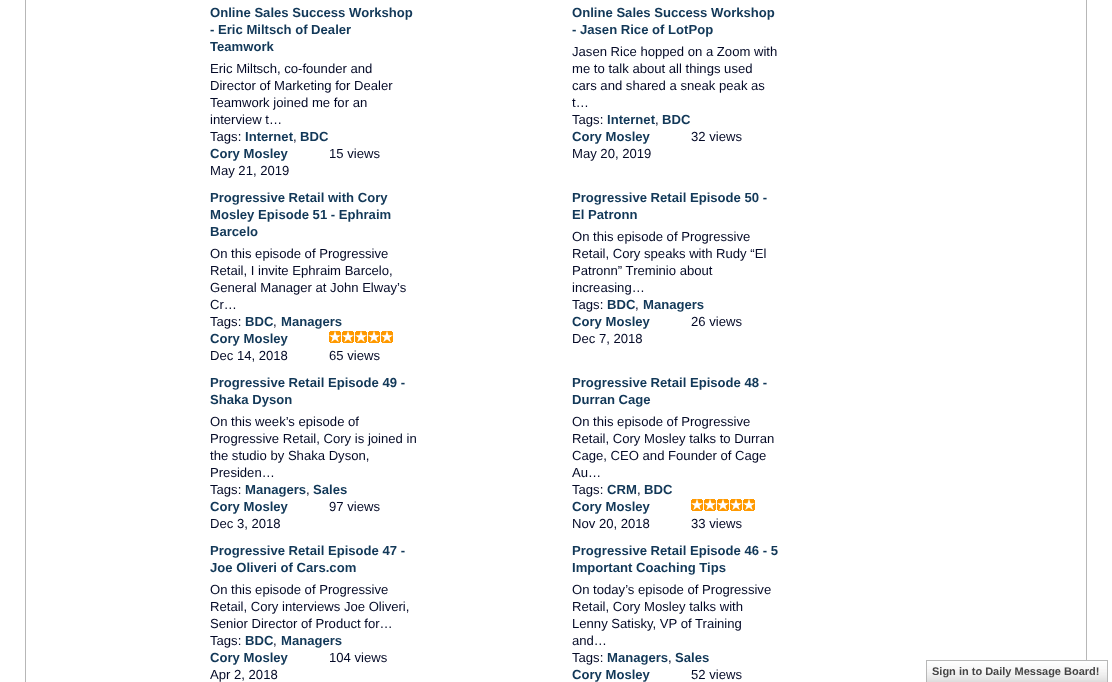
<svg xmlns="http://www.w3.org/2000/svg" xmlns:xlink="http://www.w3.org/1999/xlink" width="1112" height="682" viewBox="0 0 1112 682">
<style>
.cls-1{font:bold 13.1px Liberation Sans;fill:#123858}
.cls-2{font:13.1px Liberation Sans;fill:#030926}
.cls-3{font:bold 11px Liberation Sans;fill:#454545}
</style>
<rect width="100%" height="100%" fill="#ffffff"/>
<rect fill="#b7b7b7" x="1086" y="0" width="1" height="660"/>
<rect fill="#b7b7b7" x="25" y="0" width="1" height="682"/>
<image xlink:href="image0.png" x="329" y="331" width="64" height="12"/>
<image xlink:href="image0.png" x="691" y="499" width="64" height="12"/>
<image xlink:href="image1.png" x="927" y="661" width="180" height="21"/>
<rect fill="none" stroke="#b7b7b7" x="926.5" y="660.5" width="181" height="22"/>
<text class="cls-1"><tspan x="210" y="17">Online Sales Success Workshop</tspan><tspan x="210" y="34">- Eric Miltsch of Dealer</tspan><tspan x="210" y="51">Teamwork</tspan></text>
<text class="cls-2"><tspan x="210" y="73">Eric Miltsch, co-founder and</tspan><tspan x="210" y="90">Director of Marketing for Dealer</tspan><tspan x="210" y="107">Teamwork joined me for an</tspan><tspan x="210" y="124">interview t…</tspan><tspan x="210" y="141">Tags:</tspan></text>
<text class="cls-1" x="245" y="141">Internet</text>
<text class="cls-2" x="293" y="141">,</text>
<text class="cls-1" x="300" y="141">BDC</text>
<text class="cls-1" x="210" y="158">Cory Mosley</text>
<text class="cls-2" x="210" y="175">May 21, 2019</text>
<text class="cls-2" x="329" y="158">15 views</text>
<text class="cls-1"><tspan x="572" y="17">Online Sales Success Workshop</tspan><tspan x="572" y="34">- Jasen Rice of LotPop</tspan></text>
<text class="cls-2"><tspan x="572" y="56">Jasen Rice hopped on a Zoom with</tspan><tspan x="572" y="73">me to talk about all things used</tspan><tspan x="572" y="90">cars and shared a sneak peak as</tspan><tspan x="572" y="107">t…</tspan><tspan x="572" y="124">Tags:</tspan></text>
<text class="cls-1" x="607" y="124">Internet</text>
<text class="cls-2" x="655" y="124">,</text>
<text class="cls-1" x="662" y="124">BDC</text>
<text class="cls-1" x="572" y="141">Cory Mosley</text>
<text class="cls-2" x="572" y="158">May 20, 2019</text>
<text class="cls-2" x="691" y="141">32 views</text>
<text class="cls-1"><tspan x="210" y="202">Progressive Retail with Cory</tspan><tspan x="210" y="219">Mosley Episode 51 - Ephraim</tspan><tspan x="210" y="236">Barcelo</tspan></text>
<text class="cls-2"><tspan x="210" y="258">On this episode of Progressive</tspan><tspan x="210" y="275">Retail, I invite Ephraim Barcelo,</tspan><tspan x="210" y="292">General Manager at John Elway’s</tspan><tspan x="210" y="309">Cr…</tspan><tspan x="210" y="326">Tags:</tspan></text>
<text class="cls-1" x="245" y="326">BDC</text>
<text class="cls-2" x="273" y="326">,</text>
<text class="cls-1" x="281" y="326">Managers</text>
<text class="cls-1" x="210" y="343">Cory Mosley</text>
<text class="cls-2" x="210" y="360">Dec 14, 2018</text>
<text class="cls-2" x="329" y="360">65 views</text>
<text class="cls-1"><tspan x="572" y="202">Progressive Retail Episode 50 -</tspan><tspan x="572" y="219">El Patronn</tspan></text>
<text class="cls-2"><tspan x="572" y="241">On this episode of Progressive</tspan><tspan x="572" y="258">Retail, Cory speaks with Rudy “El</tspan><tspan x="572" y="275">Patronn” Treminio about</tspan><tspan x="572" y="292">increasing…</tspan><tspan x="572" y="309">Tags:</tspan></text>
<text class="cls-1" x="607" y="309">BDC</text>
<text class="cls-2" x="635" y="309">,</text>
<text class="cls-1" x="643" y="309">Managers</text>
<text class="cls-1" x="572" y="326">Cory Mosley</text>
<text class="cls-2" x="572" y="343">Dec 7, 2018</text>
<text class="cls-2" x="691" y="326">26 views</text>
<text class="cls-1"><tspan x="210" y="387">Progressive Retail Episode 49 -</tspan><tspan x="210" y="404">Shaka Dyson</tspan></text>
<text class="cls-2"><tspan x="210" y="426">On this week’s episode of</tspan><tspan x="210" y="443">Progressive Retail, Cory is joined in</tspan><tspan x="210" y="460">the studio by Shaka Dyson,</tspan><tspan x="210" y="477">Presiden…</tspan><tspan x="210" y="494">Tags:</tspan></text>
<text class="cls-1" x="245" y="494">Managers</text>
<text class="cls-2" x="306" y="494">,</text>
<text class="cls-1" x="313" y="494">Sales</text>
<text class="cls-1" x="210" y="511">Cory Mosley</text>
<text class="cls-2" x="210" y="528">Dec 3, 2018</text>
<text class="cls-2" x="329" y="511">97 views</text>
<text class="cls-1"><tspan x="572" y="387">Progressive Retail Episode 48 -</tspan><tspan x="572" y="404">Durran Cage</tspan></text>
<text class="cls-2"><tspan x="572" y="426">On this episode of Progressive</tspan><tspan x="572" y="443">Retail, Cory Mosley talks to Durran</tspan><tspan x="572" y="460">Cage, CEO and Founder of Cage</tspan><tspan x="572" y="477">Au…</tspan><tspan x="572" y="494">Tags:</tspan></text>
<text class="cls-1" x="607" y="494">CRM</text>
<text class="cls-2" x="637" y="494">,</text>
<text class="cls-1" x="644" y="494">BDC</text>
<text class="cls-1" x="572" y="511">Cory Mosley</text>
<text class="cls-2" x="572" y="528">Nov 20, 2018</text>
<text class="cls-2" x="691" y="528">33 views</text>
<text class="cls-1"><tspan x="210" y="555">Progressive Retail Episode 47 -</tspan><tspan x="210" y="572">Joe Oliveri of Cars.com</tspan></text>
<text class="cls-2"><tspan x="210" y="594">On this episode of Progressive</tspan><tspan x="210" y="611">Retail, Cory interviews Joe Oliveri,</tspan><tspan x="210" y="628">Senior Director of Product for…</tspan><tspan x="210" y="645">Tags:</tspan></text>
<text class="cls-1" x="245" y="645">BDC</text>
<text class="cls-2" x="273" y="645">,</text>
<text class="cls-1" x="281" y="645">Managers</text>
<text class="cls-1" x="210" y="662">Cory Mosley</text>
<text class="cls-2" x="210" y="679">Apr 2, 2018</text>
<text class="cls-2" x="329" y="662">104 views</text>
<text class="cls-1"><tspan x="572" y="555">Progressive Retail Episode 46 - 5</tspan><tspan x="572" y="572">Important Coaching Tips</tspan></text>
<text class="cls-2"><tspan x="572" y="594">On today’s episode of Progressive</tspan><tspan x="572" y="611">Retail, Cory Mosley talks with</tspan><tspan x="572" y="628">Lenny Satisky, VP of Training</tspan><tspan x="572" y="645">and…</tspan><tspan x="572" y="662">Tags:</tspan></text>
<text class="cls-1" x="607" y="662">Managers</text>
<text class="cls-2" x="668" y="662">,</text>
<text class="cls-1" x="675" y="662">Sales</text>
<text class="cls-1" x="572" y="679">Cory Mosley</text>
<text class="cls-2" x="691" y="679">52 views</text>
<text class="cls-3" x="932" y="675">Sign in to Daily Message Board!</text>
</svg>
